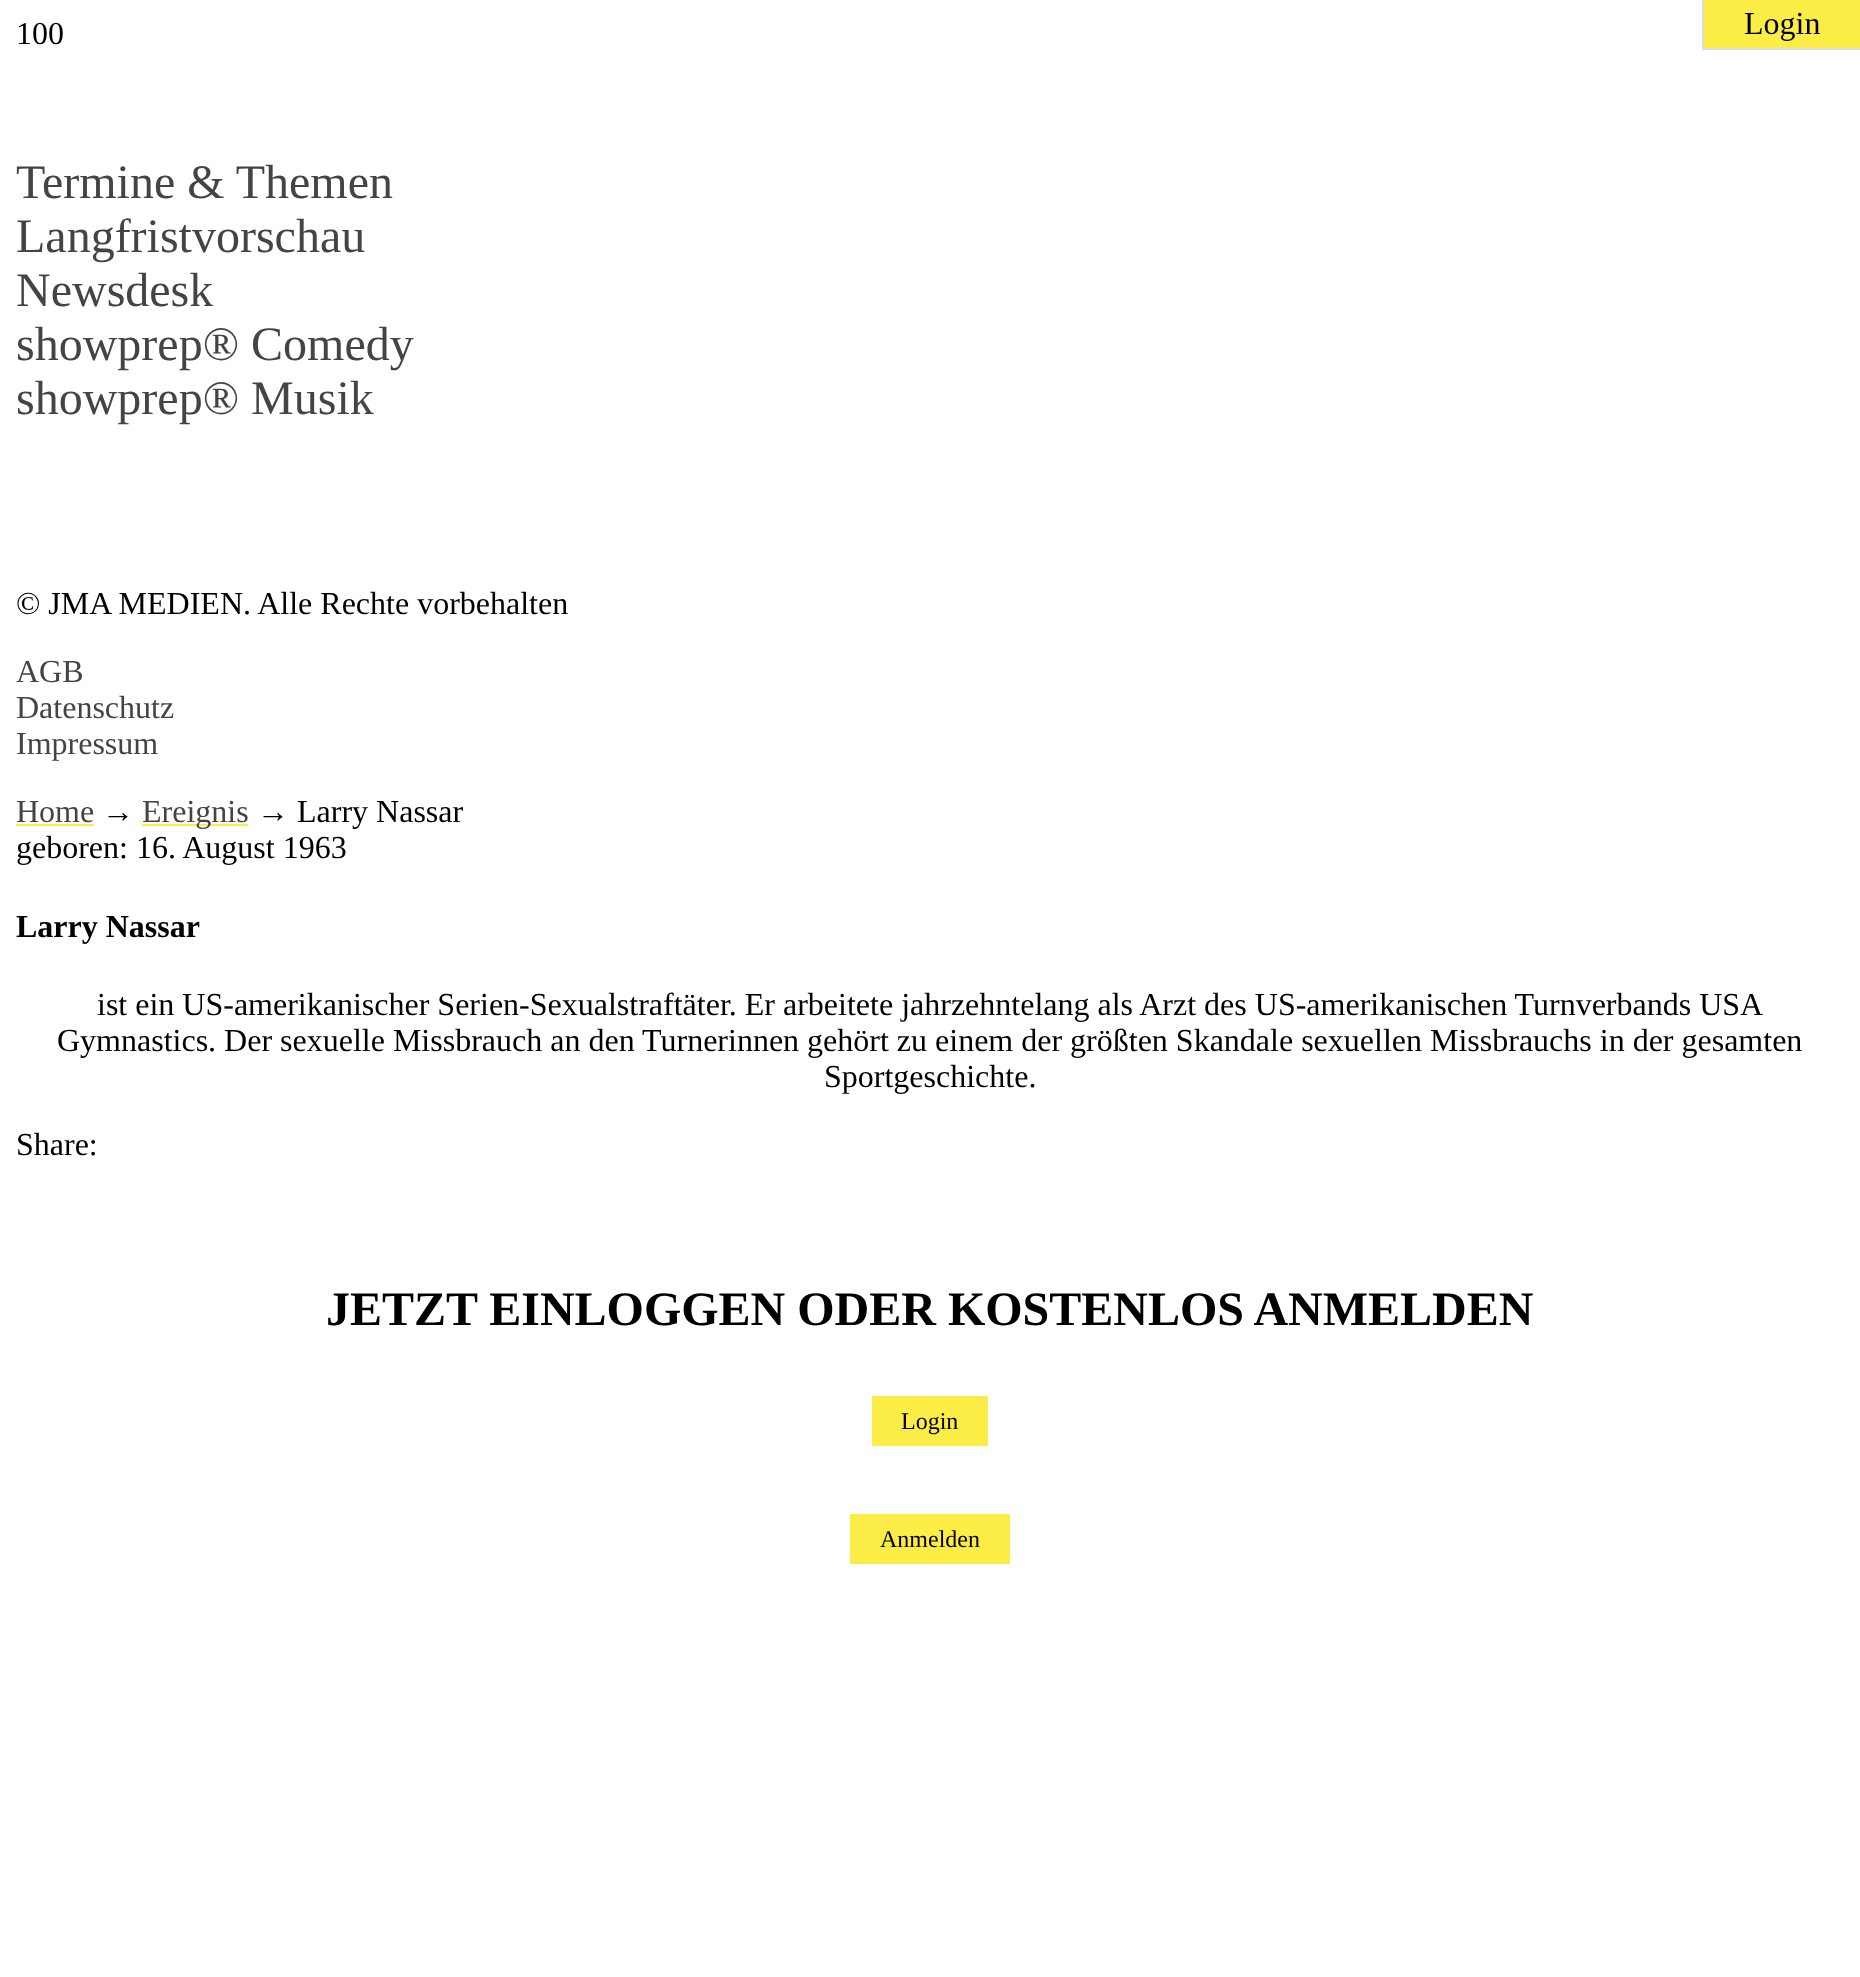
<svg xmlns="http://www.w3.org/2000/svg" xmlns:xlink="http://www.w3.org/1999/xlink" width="1860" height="1977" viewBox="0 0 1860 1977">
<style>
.cls-1{font:32px Liberation Serif;fill:#000000}
.cls-2{font:48px Liberation Serif;fill:#444444}
.cls-3{font:32px Liberation Serif;fill:#444444}
.cls-4{font:bold 32px Liberation Serif;fill:#000000}
.cls-5{font:bold 48px Liberation Serif;fill:#000000}
.cls-6{font:24px Liberation Serif;fill:#000000}
</style>
<rect width="100%" height="100%" fill="#ffffff"/>
<rect fill="#dddddd" x="1702" y="48" width="158" height="2"/>
<rect fill="#dddddd" x="1702" y="0" width="2" height="50"/>
<rect fill="#fbec46" x="1704" y="0" width="156" height="48"/>
<rect fill="#fbec46" x="16" y="824" width="78" height="2"/>
<rect fill="#fbec46" x="142" y="824" width="106" height="2"/>
<rect fill="#fbec46" x="872" y="1396" width="116" height="50"/>
<rect fill="#fbec46" x="850" y="1514" width="160" height="50"/>
<text class="cls-1" x="1744" y="34">Login</text>
<text class="cls-1" x="16" y="44">100</text>
<text class="cls-2"><tspan x="16" y="198">Termine &amp; Themen</tspan><tspan x="16" y="252">Langfristvorschau</tspan><tspan x="16" y="306">Newsdesk</tspan><tspan x="16" y="360">showprep® Comedy</tspan><tspan x="16" y="414">showprep® Musik</tspan></text>
<text class="cls-1" x="16" y="614">© JMA MEDIEN. Alle Rechte vorbehalten</text>
<text class="cls-3"><tspan x="16" y="682">AGB</tspan><tspan x="16" y="718">Datenschutz</tspan><tspan x="16" y="754">Impressum</tspan></text>
<text class="cls-3" x="16" y="822">Home</text>
<text class="cls-1" x="102" y="822">→</text>
<text class="cls-3" x="142" y="822">Ereignis</text>
<text class="cls-1" x="257" y="822">→ Larry Nassar</text>
<text class="cls-1" x="16" y="858">geboren: 16. August 1963</text>
<text class="cls-4" x="16" y="937">Larry Nassar</text>
<text class="cls-1" x="97" y="1015">ist ein US-amerikanischer Serien-Sexualstraftäter. Er arbeitete jahrzehntelang als Arzt des US-amerikanischen Turnverbands USA</text>
<text class="cls-1" x="57" y="1051">Gymnastics. Der sexuelle Missbrauch an den Turnerinnen gehört zu einem der größten Skandale sexuellen Missbrauchs in der gesamten</text>
<text class="cls-1" x="824" y="1087">Sportgeschichte.</text>
<text class="cls-1" x="16" y="1155">Share:</text>
<text class="cls-5" x="326" y="1325">JETZT EINLOGGEN ODER KOSTENLOS ANMELDEN</text>
<text class="cls-6" x="901" y="1429">Login</text>
<text class="cls-6" x="880" y="1547">Anmelden</text>
</svg>
